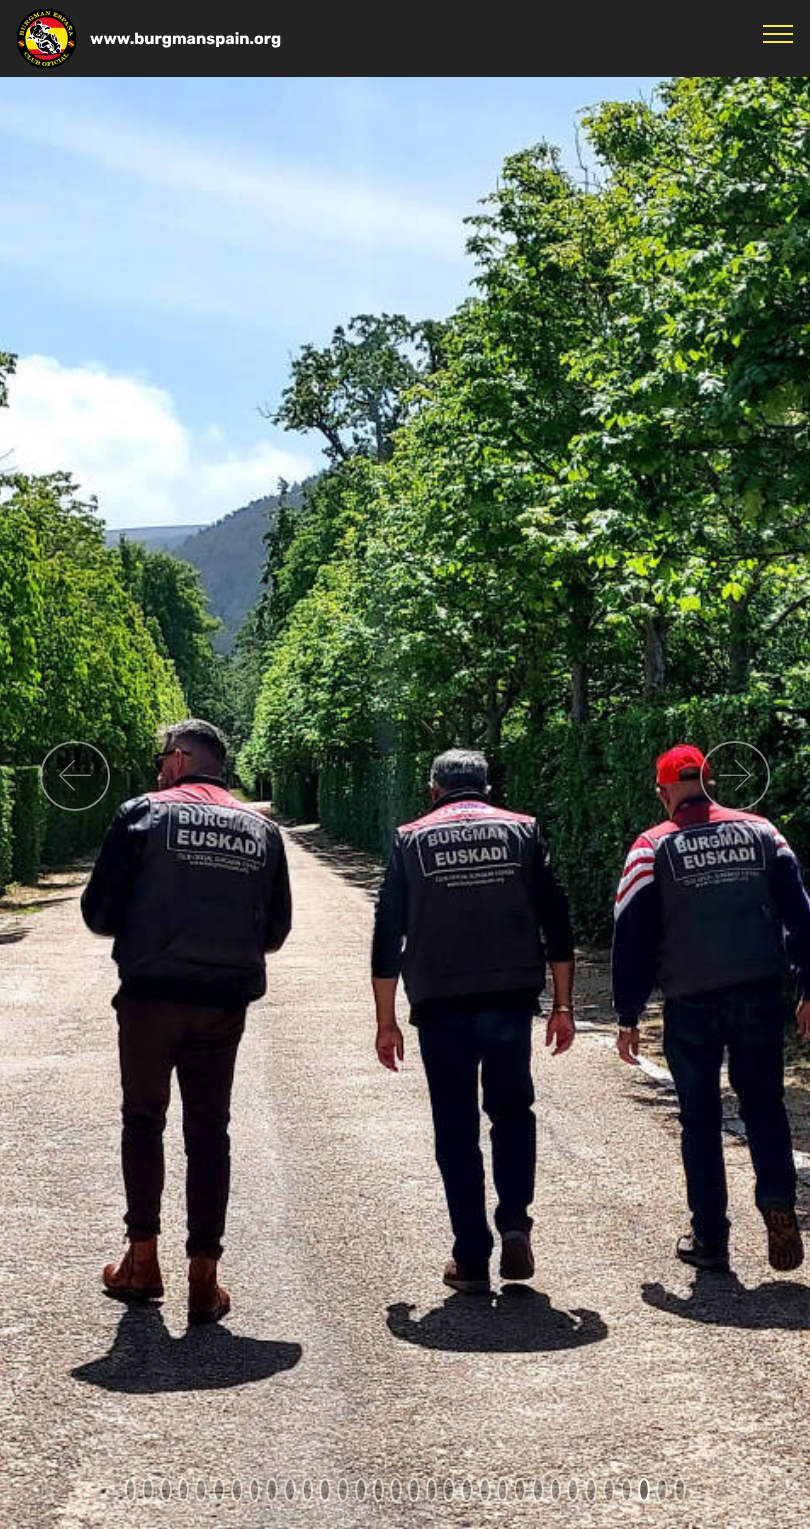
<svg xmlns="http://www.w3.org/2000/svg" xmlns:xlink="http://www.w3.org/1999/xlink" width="810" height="1529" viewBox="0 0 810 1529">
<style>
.cls-1{font:bold 16px Rubik;fill:#ffffff}
</style>
<rect width="100%" height="100%" fill="#ffffff"/>
<rect fill="#232323" x="0" y="0" width="810" height="77"/>
<image xlink:href="image0.png" x="16" y="8" width="61" height="61"/>
<rect fill="#f7ed4a" x="763" y="25" width="30" height="2"/>
<rect fill="#f7ed4a" x="763" y="33" width="30" height="2"/>
<rect fill="#f7ed4a" x="763" y="41" width="30" height="2"/>
<image xlink:href="image1.png" x="0" y="77" width="810" height="1452"/>
<circle fill="#000000" fill-opacity="0.25" cx="75" cy="776" r="35"/>
<circle fill="none" stroke="#ffffff" stroke-opacity="0.5" stroke-width="2" cx="75" cy="776" r="34"/>
<image xlink:href="image2.png" x="59" y="760" width="32" height="31"/>
<circle fill="#000000" fill-opacity="0.25" cx="735" cy="776" r="35"/>
<circle fill="none" stroke="#ffffff" stroke-opacity="0.5" stroke-width="2" cx="735" cy="776" r="34"/>
<image xlink:href="image3.png" x="719" y="760" width="32" height="31"/>
<ellipse fill="#000000" fill-opacity="0.25" cx="130.5" cy="1490" rx="3.5" ry="10"/>
<path fill="none" stroke="#ffffff" stroke-opacity="0.5" stroke-width="2" d="M130.5 1479C136.5 1479 136.5 1501 130.5 1501C124.5 1501 124.5 1479 130.5 1479Z"/>
<ellipse fill="#000000" fill-opacity="0.25" cx="148" cy="1490" rx="4" ry="10"/>
<path fill="none" stroke="#ffffff" stroke-opacity="0.5" stroke-width="2" d="M148 1479C154.5 1479 154.5 1501 148 1501C141.5 1501 141.5 1479 148 1479Z"/>
<ellipse fill="#000000" fill-opacity="0.25" cx="166" cy="1490" rx="4" ry="10"/>
<path fill="none" stroke="#ffffff" stroke-opacity="0.5" stroke-width="2" d="M166 1479C172.5 1479 172.5 1501 166 1501C159.5 1501 159.5 1479 166 1479Z"/>
<ellipse fill="#000000" fill-opacity="0.25" cx="183.5" cy="1490" rx="3.5" ry="10"/>
<path fill="none" stroke="#ffffff" stroke-opacity="0.5" stroke-width="2" d="M183.5 1479C189.5 1479 189.5 1501 183.5 1501C177.5 1501 177.5 1479 183.5 1479Z"/>
<ellipse fill="#000000" fill-opacity="0.25" cx="201" cy="1490" rx="4" ry="10"/>
<path fill="none" stroke="#ffffff" stroke-opacity="0.5" stroke-width="2" d="M201 1479C207.5 1479 207.5 1501 201 1501C194.5 1501 194.5 1479 201 1479Z"/>
<ellipse fill="#000000" fill-opacity="0.25" cx="219" cy="1490" rx="4" ry="10"/>
<path fill="none" stroke="#ffffff" stroke-opacity="0.5" stroke-width="2" d="M219 1479C225.5 1479 225.5 1501 219 1501C212.5 1501 212.5 1479 219 1479Z"/>
<ellipse fill="#000000" fill-opacity="0.25" cx="237" cy="1490" rx="4" ry="10"/>
<path fill="none" stroke="#ffffff" stroke-opacity="0.5" stroke-width="2" d="M237 1479C243.5 1479 243.5 1501 237 1501C230.5 1501 230.5 1479 237 1479Z"/>
<ellipse fill="#000000" fill-opacity="0.25" cx="254.5" cy="1490" rx="3.5" ry="10"/>
<path fill="none" stroke="#ffffff" stroke-opacity="0.5" stroke-width="2" d="M254.5 1479C260.5 1479 260.5 1501 254.5 1501C248.5 1501 248.5 1479 254.5 1479Z"/>
<ellipse fill="#000000" fill-opacity="0.25" cx="272" cy="1490" rx="4" ry="10"/>
<path fill="none" stroke="#ffffff" stroke-opacity="0.5" stroke-width="2" d="M272 1479C278.5 1479 278.5 1501 272 1501C265.5 1501 265.5 1479 272 1479Z"/>
<ellipse fill="#000000" fill-opacity="0.25" cx="290" cy="1490" rx="4" ry="10"/>
<path fill="none" stroke="#ffffff" stroke-opacity="0.5" stroke-width="2" d="M290 1479C296.5 1479 296.5 1501 290 1501C283.5 1501 283.5 1479 290 1479Z"/>
<ellipse fill="#000000" fill-opacity="0.25" cx="307.5" cy="1490" rx="3.5" ry="10"/>
<path fill="none" stroke="#ffffff" stroke-opacity="0.5" stroke-width="2" d="M307.5 1479C313.5 1479 313.5 1501 307.5 1501C301.5 1501 301.5 1479 307.5 1479Z"/>
<ellipse fill="#000000" fill-opacity="0.25" cx="325" cy="1490" rx="4" ry="10"/>
<path fill="none" stroke="#ffffff" stroke-opacity="0.5" stroke-width="2" d="M325 1479C331.5 1479 331.5 1501 325 1501C318.5 1501 318.5 1479 325 1479Z"/>
<ellipse fill="#000000" fill-opacity="0.25" cx="343" cy="1490" rx="4" ry="10"/>
<path fill="none" stroke="#ffffff" stroke-opacity="0.5" stroke-width="2" d="M343 1479C349.5 1479 349.5 1501 343 1501C336.5 1501 336.5 1479 343 1479Z"/>
<ellipse fill="#000000" fill-opacity="0.25" cx="361" cy="1490" rx="4" ry="10"/>
<path fill="none" stroke="#ffffff" stroke-opacity="0.5" stroke-width="2" d="M361 1479C367.5 1479 367.5 1501 361 1501C354.5 1501 354.5 1479 361 1479Z"/>
<ellipse fill="#000000" fill-opacity="0.25" cx="378.5" cy="1490" rx="3.5" ry="10"/>
<path fill="none" stroke="#ffffff" stroke-opacity="0.5" stroke-width="2" d="M378.5 1479C384.5 1479 384.5 1501 378.5 1501C372.5 1501 372.5 1479 378.5 1479Z"/>
<ellipse fill="#000000" fill-opacity="0.25" cx="396" cy="1490" rx="4" ry="10"/>
<path fill="none" stroke="#ffffff" stroke-opacity="0.5" stroke-width="2" d="M396 1479C402.5 1479 402.5 1501 396 1501C389.5 1501 389.5 1479 396 1479Z"/>
<ellipse fill="#000000" fill-opacity="0.25" cx="414" cy="1490" rx="4" ry="10"/>
<path fill="none" stroke="#ffffff" stroke-opacity="0.5" stroke-width="2" d="M414 1479C420.5 1479 420.5 1501 414 1501C407.5 1501 407.5 1479 414 1479Z"/>
<ellipse fill="#000000" fill-opacity="0.25" cx="431.5" cy="1490" rx="3.5" ry="10"/>
<path fill="none" stroke="#ffffff" stroke-opacity="0.5" stroke-width="2" d="M431.5 1479C437.5 1479 437.5 1501 431.5 1501C425.5 1501 425.5 1479 431.5 1479Z"/>
<ellipse fill="#000000" fill-opacity="0.25" cx="449" cy="1490" rx="4" ry="10"/>
<path fill="none" stroke="#ffffff" stroke-opacity="0.5" stroke-width="2" d="M449 1479C455.5 1479 455.5 1501 449 1501C442.5 1501 442.5 1479 449 1479Z"/>
<ellipse fill="#000000" fill-opacity="0.25" cx="467" cy="1490" rx="4" ry="10"/>
<path fill="none" stroke="#ffffff" stroke-opacity="0.5" stroke-width="2" d="M467 1479C473.5 1479 473.5 1501 467 1501C460.5 1501 460.5 1479 467 1479Z"/>
<ellipse fill="#000000" fill-opacity="0.25" cx="485" cy="1490" rx="4" ry="10"/>
<path fill="none" stroke="#ffffff" stroke-opacity="0.5" stroke-width="2" d="M485 1479C491.5 1479 491.5 1501 485 1501C478.5 1501 478.5 1479 485 1479Z"/>
<ellipse fill="#000000" fill-opacity="0.25" cx="502.5" cy="1490" rx="3.5" ry="10"/>
<path fill="none" stroke="#ffffff" stroke-opacity="0.5" stroke-width="2" d="M502.5 1479C508.5 1479 508.5 1501 502.5 1501C496.5 1501 496.5 1479 502.5 1479Z"/>
<ellipse fill="#000000" fill-opacity="0.25" cx="520" cy="1490" rx="4" ry="10"/>
<path fill="none" stroke="#ffffff" stroke-opacity="0.5" stroke-width="2" d="M520 1479C526.5 1479 526.5 1501 520 1501C513.5 1501 513.5 1479 520 1479Z"/>
<ellipse fill="#000000" fill-opacity="0.25" cx="538" cy="1490" rx="4" ry="10"/>
<path fill="none" stroke="#ffffff" stroke-opacity="0.5" stroke-width="2" d="M538 1479C544.5 1479 544.5 1501 538 1501C531.5 1501 531.5 1479 538 1479Z"/>
<ellipse fill="#000000" fill-opacity="0.25" cx="555.5" cy="1490" rx="3.5" ry="10"/>
<path fill="none" stroke="#ffffff" stroke-opacity="0.5" stroke-width="2" d="M555.5 1479C561.5 1479 561.5 1501 555.5 1501C549.5 1501 549.5 1479 555.5 1479Z"/>
<ellipse fill="#000000" fill-opacity="0.25" cx="573" cy="1490" rx="4" ry="10"/>
<path fill="none" stroke="#ffffff" stroke-opacity="0.5" stroke-width="2" d="M573 1479C579.5 1479 579.5 1501 573 1501C566.5 1501 566.5 1479 573 1479Z"/>
<ellipse fill="#000000" fill-opacity="0.25" cx="591" cy="1490" rx="4" ry="10"/>
<path fill="none" stroke="#ffffff" stroke-opacity="0.5" stroke-width="2" d="M591 1479C597.5 1479 597.5 1501 591 1501C584.5 1501 584.5 1479 591 1479Z"/>
<ellipse fill="#000000" fill-opacity="0.25" cx="609" cy="1490" rx="4" ry="10"/>
<path fill="none" stroke="#ffffff" stroke-opacity="0.5" stroke-width="2" d="M609 1479C615.5 1479 615.5 1501 609 1501C602.5 1501 602.5 1479 609 1479Z"/>
<ellipse fill="#000000" fill-opacity="0.25" cx="626.5" cy="1490" rx="3.5" ry="10"/>
<path fill="none" stroke="#ffffff" stroke-opacity="0.5" stroke-width="2" d="M626.5 1479C632.5 1479 632.5 1501 626.5 1501C620.5 1501 620.5 1479 626.5 1479Z"/>
<ellipse fill="#000000" fill-opacity="0.45" cx="644" cy="1490" rx="4" ry="10"/>
<path fill="none" stroke="#ffffff" stroke-opacity="0.9" stroke-width="2" d="M644 1479C650.5 1479 650.5 1501 644 1501C637.5 1501 637.5 1479 644 1479Z"/>
<ellipse fill="#000000" fill-opacity="0.25" cx="662" cy="1490" rx="4" ry="10"/>
<path fill="none" stroke="#ffffff" stroke-opacity="0.5" stroke-width="2" d="M662 1479C668.5 1479 668.5 1501 662 1501C655.5 1501 655.5 1479 662 1479Z"/>
<ellipse fill="#000000" fill-opacity="0.25" cx="680" cy="1490" rx="4" ry="10"/>
<path fill="none" stroke="#ffffff" stroke-opacity="0.5" stroke-width="2" d="M680 1479C686.5 1479 686.5 1501 680 1501C673.5 1501 673.5 1479 680 1479Z"/>
<text class="cls-1" x="90" y="44">www.burgmanspain.org</text>
</svg>
